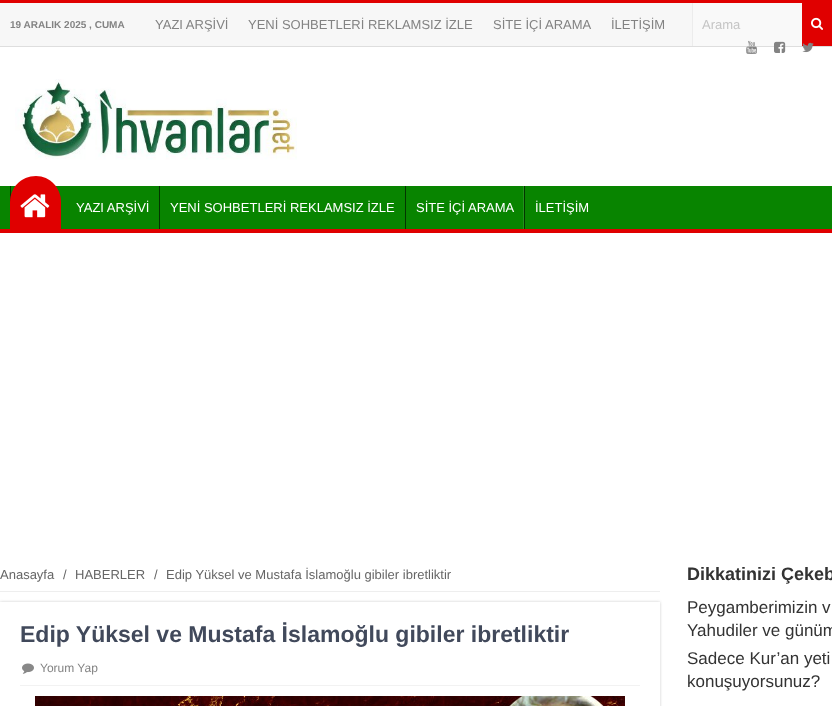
<svg xmlns="http://www.w3.org/2000/svg" xmlns:xlink="http://www.w3.org/1999/xlink" width="832" height="706" viewBox="0 0 832 706">
<style>
.cls-1{font:bold 10px Liberation Sans;fill:#838383}
.cls-2{font:13px Liberation Sans;fill:#838383}
.cls-3{font:13px Liberation Sans;fill:#c5c5c5}
.cls-4{font:13px Liberation Sans;fill:#ffffff}
.cls-5{font:13px Liberation Sans;fill:#666666}
.cls-6{font:bold 23px Liberation Sans;fill:#41495b}
.cls-7{font:12px Liberation Sans;fill:#838383}
.cls-8{font:bold 18px Liberation Sans;fill:#333333}
.cls-9{font:17px Liberation Sans;fill:#333333}
</style>
<defs>
<clipPath id="clip1"><path d="M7 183H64V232H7ZM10 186H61V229H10Z" clip-rule="evenodd"/></clipPath>
<clipPath id="clip2"><path d="M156 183H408V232H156ZM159 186H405V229H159Z" clip-rule="evenodd"/></clipPath>
<clipPath id="clip3"><path d="M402 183H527V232H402ZM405 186H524V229H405Z" clip-rule="evenodd"/></clipPath>
<clipPath id="clip4"><path d="M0 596H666V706H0ZM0 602H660V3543H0Z" clip-rule="evenodd"/></clipPath>
</defs>
<rect width="100%" height="100%" fill="#ffffff"/>
<rect fill="#f7f7f7" x="0" y="3" width="692" height="43"/>
<rect fill="#e00000" x="0" y="0" width="832" height="3"/>
<rect fill="#dedede" x="0" y="46" width="832" height="1"/>
<rect fill="#f9f9f9" x="693" y="3" width="109" height="43"/>
<rect fill="#ececec" x="692" y="3" width="1" height="43"/>
<rect fill="#e00000" x="802" y="3" width="30" height="43"/>
<image xlink:href="image0.png" x="811" y="17" width="12" height="13"/>
<image xlink:href="image1.png" x="746" y="40" width="11" height="14"/>
<image xlink:href="image2.png" x="774" y="41" width="12" height="12"/>
<image xlink:href="image3.png" x="802" y="42" width="12" height="11"/>
<image xlink:href="image4.png" x="15" y="79" width="282" height="81"/>
<rect fill="#088400" x="0" y="186" width="832" height="43"/>
<rect fill="#e00000" x="0" y="229" width="832" height="4"/>
<g clip-path="url(#clip1)">
<rect fill="#ffffff" filter="blur(0.5px)" x="10" y="186" width="51" height="43"/>
</g>
<rect fill="#033500" x="10" y="186" width="1" height="16"/>
<path fill="#e00000" d="M36 176C50 176 61 188 61 202V229H10V202C10 188 21 176 36 176Z"/>
<image xlink:href="image5.png" x="20" y="194" width="30" height="24"/>
<g clip-path="url(#clip2)">
<rect fill="#ffffff" filter="blur(0.5px)" x="159" y="186" width="246" height="43"/>
</g>
<rect fill="#033500" x="159" y="186" width="1" height="43"/>
<g clip-path="url(#clip3)">
<rect fill="#ffffff" filter="blur(0.5px)" x="405" y="186" width="119" height="43"/>
</g>
<rect fill="#000000" fill-opacity="0.6" x="405" y="186" width="1" height="43"/>
<rect fill="#23921c" x="523" y="186" width="1" height="43"/>
<rect fill="#000000" fill-opacity="0.6" x="524" y="186" width="1" height="43"/>
<rect fill="#eeeeee" x="0" y="591" width="660" height="1"/>
<g clip-path="url(#clip4)">
<rect fill="#cacaca" filter="blur(1.5px)" x="0" y="602" width="660" height="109"/>
</g>
<rect fill="#f2f2f2" x="20" y="685" width="620" height="1"/>
<image xlink:href="image6.png" x="22" y="663" width="12" height="11"/>
<image xlink:href="image7.png" x="35" y="696" width="590" height="10"/>
<text class="cls-1" x="10" y="28">19 ARALIK 2025 , CUMA</text>
<text class="cls-2" x="155" y="29">YAZI ARŞİVİ</text>
<text class="cls-2" x="248" y="29">YENİ SOHBETLERİ REKLAMSIZ İZLE</text>
<text class="cls-2" x="493" y="29">SİTE İÇİ ARAMA</text>
<text class="cls-2" x="611" y="29">İLETİŞİM</text>
<text class="cls-3" x="702" y="29">Arama</text>
<text class="cls-4" x="76" y="212">YAZI ARŞİVİ</text>
<text class="cls-4" x="170" y="212">YENİ SOHBETLERİ REKLAMSIZ İZLE</text>
<text class="cls-4" x="416" y="212">SİTE İÇİ ARAMA</text>
<text class="cls-4" x="535" y="212">İLETİŞİM</text>
<text class="cls-5" x="0" y="579">Anasayfa</text>
<text class="cls-5" x="63" y="579">/</text>
<text class="cls-5" x="75" y="579">HABERLER</text>
<text class="cls-5" x="154" y="579">/</text>
<text class="cls-5" x="166" y="579">Edip Yüksel ve Mustafa İslamoğlu gibiler ibretliktir</text>
<text class="cls-6" x="20" y="642">Edip Yüksel ve Mustafa İslamoğlu gibiler ibretliktir</text>
<text class="cls-7" x="40" y="672">Yorum Yap</text>
<text class="cls-8" x="687" y="580">Dikkatinizi Çekeb</text>
<text class="cls-9"><tspan x="687" y="613">Peygamberimizin v</tspan><tspan x="687" y="636">Yahudiler ve günüm</tspan><tspan x="687" y="664">Sadece Kur’an yeti</tspan><tspan x="687" y="687">konuşuyorsunuz?</tspan></text>
</svg>
